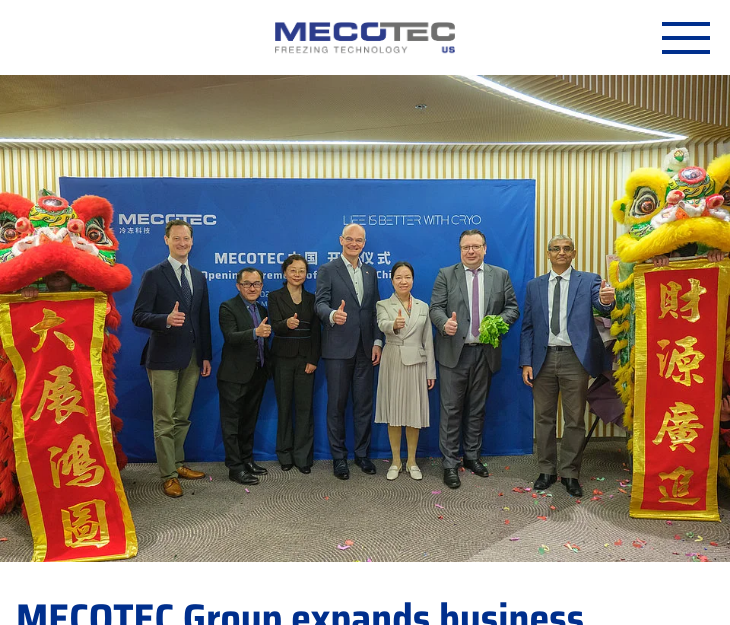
<svg xmlns="http://www.w3.org/2000/svg" xmlns:xlink="http://www.w3.org/1999/xlink" width="730" height="625" viewBox="0 0 730 625">
<rect width="100%" height="100%" fill="#ffffff"/>
<image xlink:href="image0.png" x="275" y="22" width="180" height="32"/>
<rect fill="#002f8d" x="662" y="22" width="48" height="4"/>
<rect fill="#002f8d" x="662" y="36" width="48" height="4"/>
<rect fill="#002f8d" x="662" y="50" width="48" height="4"/>
<image xlink:href="image1.png" x="0" y="75" width="730" height="487"/>
<image xlink:href="image2.png" x="18" y="602" width="565" height="23"/>
</svg>
